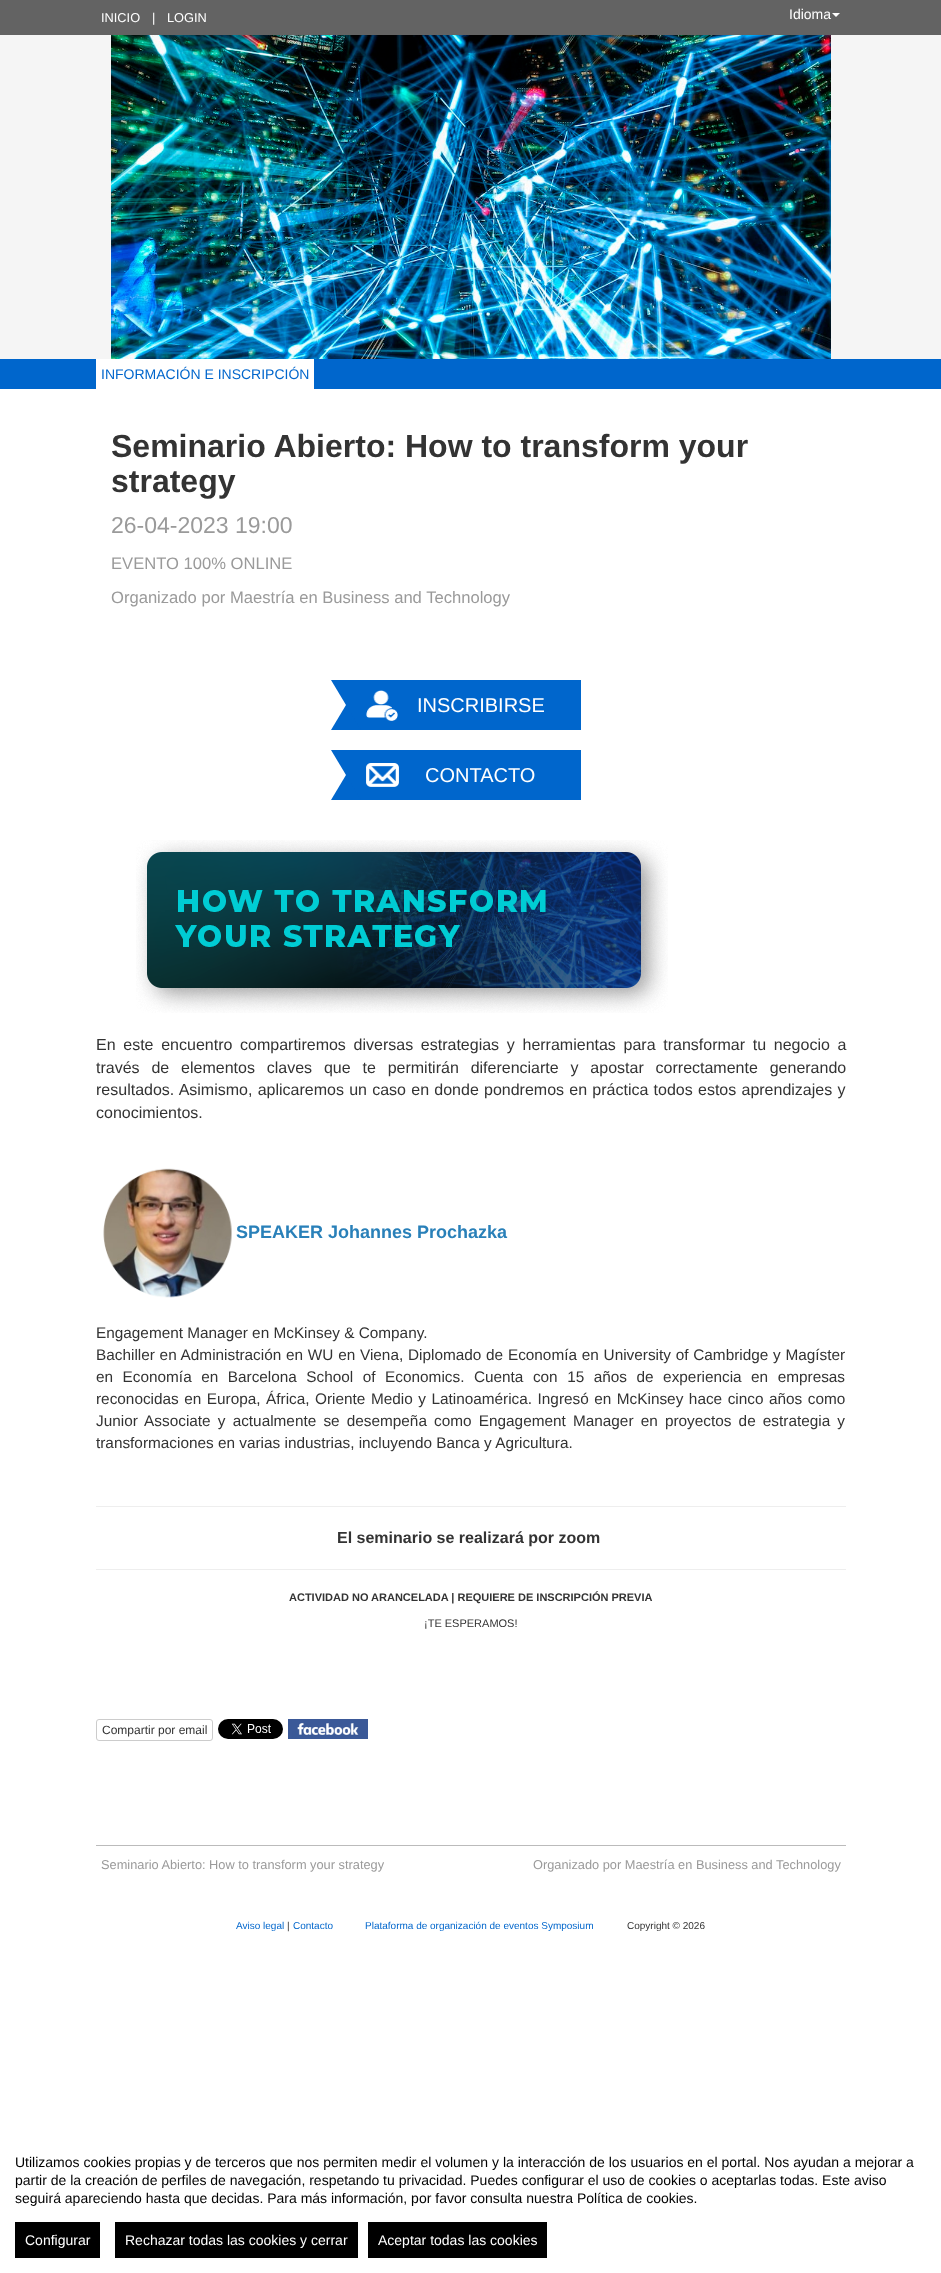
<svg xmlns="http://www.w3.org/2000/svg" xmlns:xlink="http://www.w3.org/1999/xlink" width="941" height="2273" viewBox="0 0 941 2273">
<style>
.cls-1{font:12.8px Liberation Sans;fill:#ffffff}
.cls-2{font:14px Liberation Sans;fill:#ffffff}
.cls-3{font:14px Liberation Sans;fill:#0066cc}
.cls-4{font:bold 32px Liberation Sans;fill:#333333}
.cls-5{font:23px Liberation Sans;fill:#9a9a9a}
.cls-6{font:16.6px Liberation Sans;fill:#9a9a9a}
.cls-7{font:20px Liberation Sans;fill:#ffffff}
.cls-8{font:16px Liberation Sans;fill:#333333}
.cls-9{font:bold 18px Liberation Sans;fill:#2980b9}
.cls-10{font:15.35px Liberation Sans;fill:#333333}
.cls-11{font:bold 16px Liberation Sans;fill:#333333}
.cls-12{font:bold 11px Liberation Sans;fill:#333333}
.cls-13{font:11px Liberation Sans;fill:#333333}
.cls-14{font:12px Liberation Sans;fill:#333333}
.cls-15{font:12.8px Liberation Sans;fill:#9a9a9a}
.cls-16{font:10px Liberation Sans;fill:#0066cc}
.cls-17{font:10px Liberation Sans;fill:#333333}
.cls-18{font:14px Liberation Sans;fill:#000000}
</style>
<rect width="100%" height="100%" fill="#ffffff"/>
<rect fill="#636363" x="0" y="0" width="941" height="35"/>
<path fill="#ffffff" d="M832 13H840L836 17Z"/>
<rect fill="#f5f5f5" x="0" y="35" width="941" height="324"/>
<image xlink:href="image0.png" x="111" y="35" width="720" height="324"/>
<rect fill="#0066cc" x="0" y="359" width="941" height="30"/>
<rect fill="#ffffff" x="96" y="359" width="218" height="30"/>
<rect fill="#0066cc" x="361" y="680" width="220" height="50"/>
<path fill="#0066cc" d="M331 680H361L346 705Z"/>
<rect fill="#0066cc" x="346" y="680" width="15" height="50"/>
<path fill="#0066cc" d="M361 730H331L346 705Z"/>
<image xlink:href="image1.png" x="366" y="690" width="32" height="31"/>
<rect fill="#0066cc" x="361" y="750" width="220" height="50"/>
<path fill="#0066cc" d="M331 750H361L346 775Z"/>
<rect fill="#0066cc" x="346" y="750" width="15" height="50"/>
<path fill="#0066cc" d="M361 800H331L346 775Z"/>
<image xlink:href="image2.png" x="366" y="763" width="33" height="24"/>
<image xlink:href="image3.png" x="136" y="840" width="532" height="173"/>
<image xlink:href="image4.png" x="103" y="1168" width="129" height="130"/>
<rect fill="#eeeeee" x="96" y="1506" width="750" height="1"/>
<rect fill="#eeeeee" x="96" y="1569" width="750" height="1"/>
<rect fill="none" stroke="#cccccc" x="96.5" y="1719.5" width="116" height="21" rx="2.5"/>
<image xlink:href="image5.png" x="218" y="1719" width="65" height="20"/>
<image xlink:href="image6.png" x="288" y="1719" width="80" height="20"/>
<rect fill="#bbbbbb" x="96" y="1845" width="750" height="1"/>
<rect fill="#000000" x="15" y="2222" width="85" height="36"/>
<rect fill="#000000" x="115" y="2222" width="243" height="36"/>
<rect fill="#000000" x="368" y="2222" width="179" height="36"/>
<text class="cls-1" x="101" y="22">INICIO</text>
<text class="cls-1" x="152" y="22">|</text>
<text class="cls-1" x="167" y="22">LOGIN</text>
<text class="cls-2" x="789" y="19">Idioma</text>
<text class="cls-3" x="101" y="379">INFORMACIÓN E INSCRIPCIÓN</text>
<text class="cls-4"><tspan x="111" y="457">Seminario Abierto: How to transform your</tspan><tspan x="111" y="492">strategy</tspan></text>
<text class="cls-5" x="111" y="533">26-04-2023 19:00</text>
<text class="cls-6" x="111" y="569">EVENTO 100% ONLINE</text>
<text class="cls-6" x="111" y="603">Organizado por Maestría en Business and Technology</text>
<text class="cls-7" x="417" y="712">INSCRIBIRSE</text>
<text class="cls-7" x="425" y="782">CONTACTO</text>
<text class="cls-8"><tspan x="96" y="1050" word-spacing="3.25">En este encuentro compartiremos diversas estrategias y herramientas para transformar tu negocio a</tspan><tspan x="96" y="1073" word-spacing="7.4">través de elementos claves que te permitirán diferenciarte y apostar correctamente generando</tspan><tspan x="96" y="1095" word-spacing="0.8">resultados. Asimismo, aplicaremos un caso en donde pondremos en práctica todos estos aprendizajes y</tspan><tspan x="96" y="1118">conocimientos.</tspan></text>
<text class="cls-9" x="236" y="1238">SPEAKER Johannes Prochazka</text>
<text class="cls-10"><tspan x="96" y="1338">Engagement Manager en McKinsey &amp; Company.</tspan><tspan x="96" y="1360" word-spacing="0.5">Bachiller en Administración en WU en Viena, Diplomado de Economía en University of Cambridge y Magíster</tspan><tspan x="96" y="1382" word-spacing="5.25">en Economía en Barcelona School of Economics. Cuenta con 15 años de experiencia en empresas</tspan><tspan x="96" y="1404" word-spacing="1.25">reconocidas en Europa, África, Oriente Medio y Latinoamérica. Ingresó en McKinsey hace cinco años como</tspan><tspan x="96" y="1426" word-spacing="2.9">Junior Associate y actualmente se desempeña como Engagement Manager en proyectos de estrategia y</tspan><tspan x="96" y="1448">transformaciones en varias industrias, incluyendo Banca y Agricultura.</tspan></text>
<text class="cls-11" x="337" y="1543">El seminario se realizará por zoom</text>
<text class="cls-12" x="289" y="1601">ACTIVIDAD NO ARANCELADA | REQUIERE DE INSCRIPCIÓN PREVIA</text>
<text class="cls-13" x="424" y="1627">¡TE ESPERAMOS!</text>
<text class="cls-14" x="102" y="1734">Compartir por email</text>
<text class="cls-15" x="101" y="1869">Seminario Abierto: How to transform your strategy</text>
<text class="cls-15" x="533" y="1869">Organizado por Maestría en Business and Technology</text>
<text class="cls-16" x="236" y="1929">Aviso legal</text>
<text class="cls-17" x="287" y="1929">|</text>
<text class="cls-16" x="293" y="1929">Contacto</text>
<text class="cls-16" x="365" y="1929">Plataforma de organización de eventos Symposium</text>
<text class="cls-17" x="627" y="1929">Copyright © 2026</text>
<text class="cls-18"><tspan x="15" y="2167">Utilizamos cookies propias y de terceros que nos permiten medir el volumen y la interacción de los usuarios en el portal. Nos ayudan a mejorar a</tspan><tspan x="15" y="2185">partir de la creación de perfiles de navegación, respetando tu privacidad. Puedes configurar el uso de cookies o aceptarlas todas. Este aviso</tspan><tspan x="15" y="2203">seguirá apareciendo hasta que decidas. Para más información, por favor consulta nuestra Política de cookies.</tspan></text>
<text class="cls-2" x="25" y="2245">Configurar</text>
<text class="cls-2" x="125" y="2245">Rechazar todas las cookies y cerrar</text>
<text class="cls-2" x="378" y="2245">Aceptar todas las cookies</text>
</svg>
